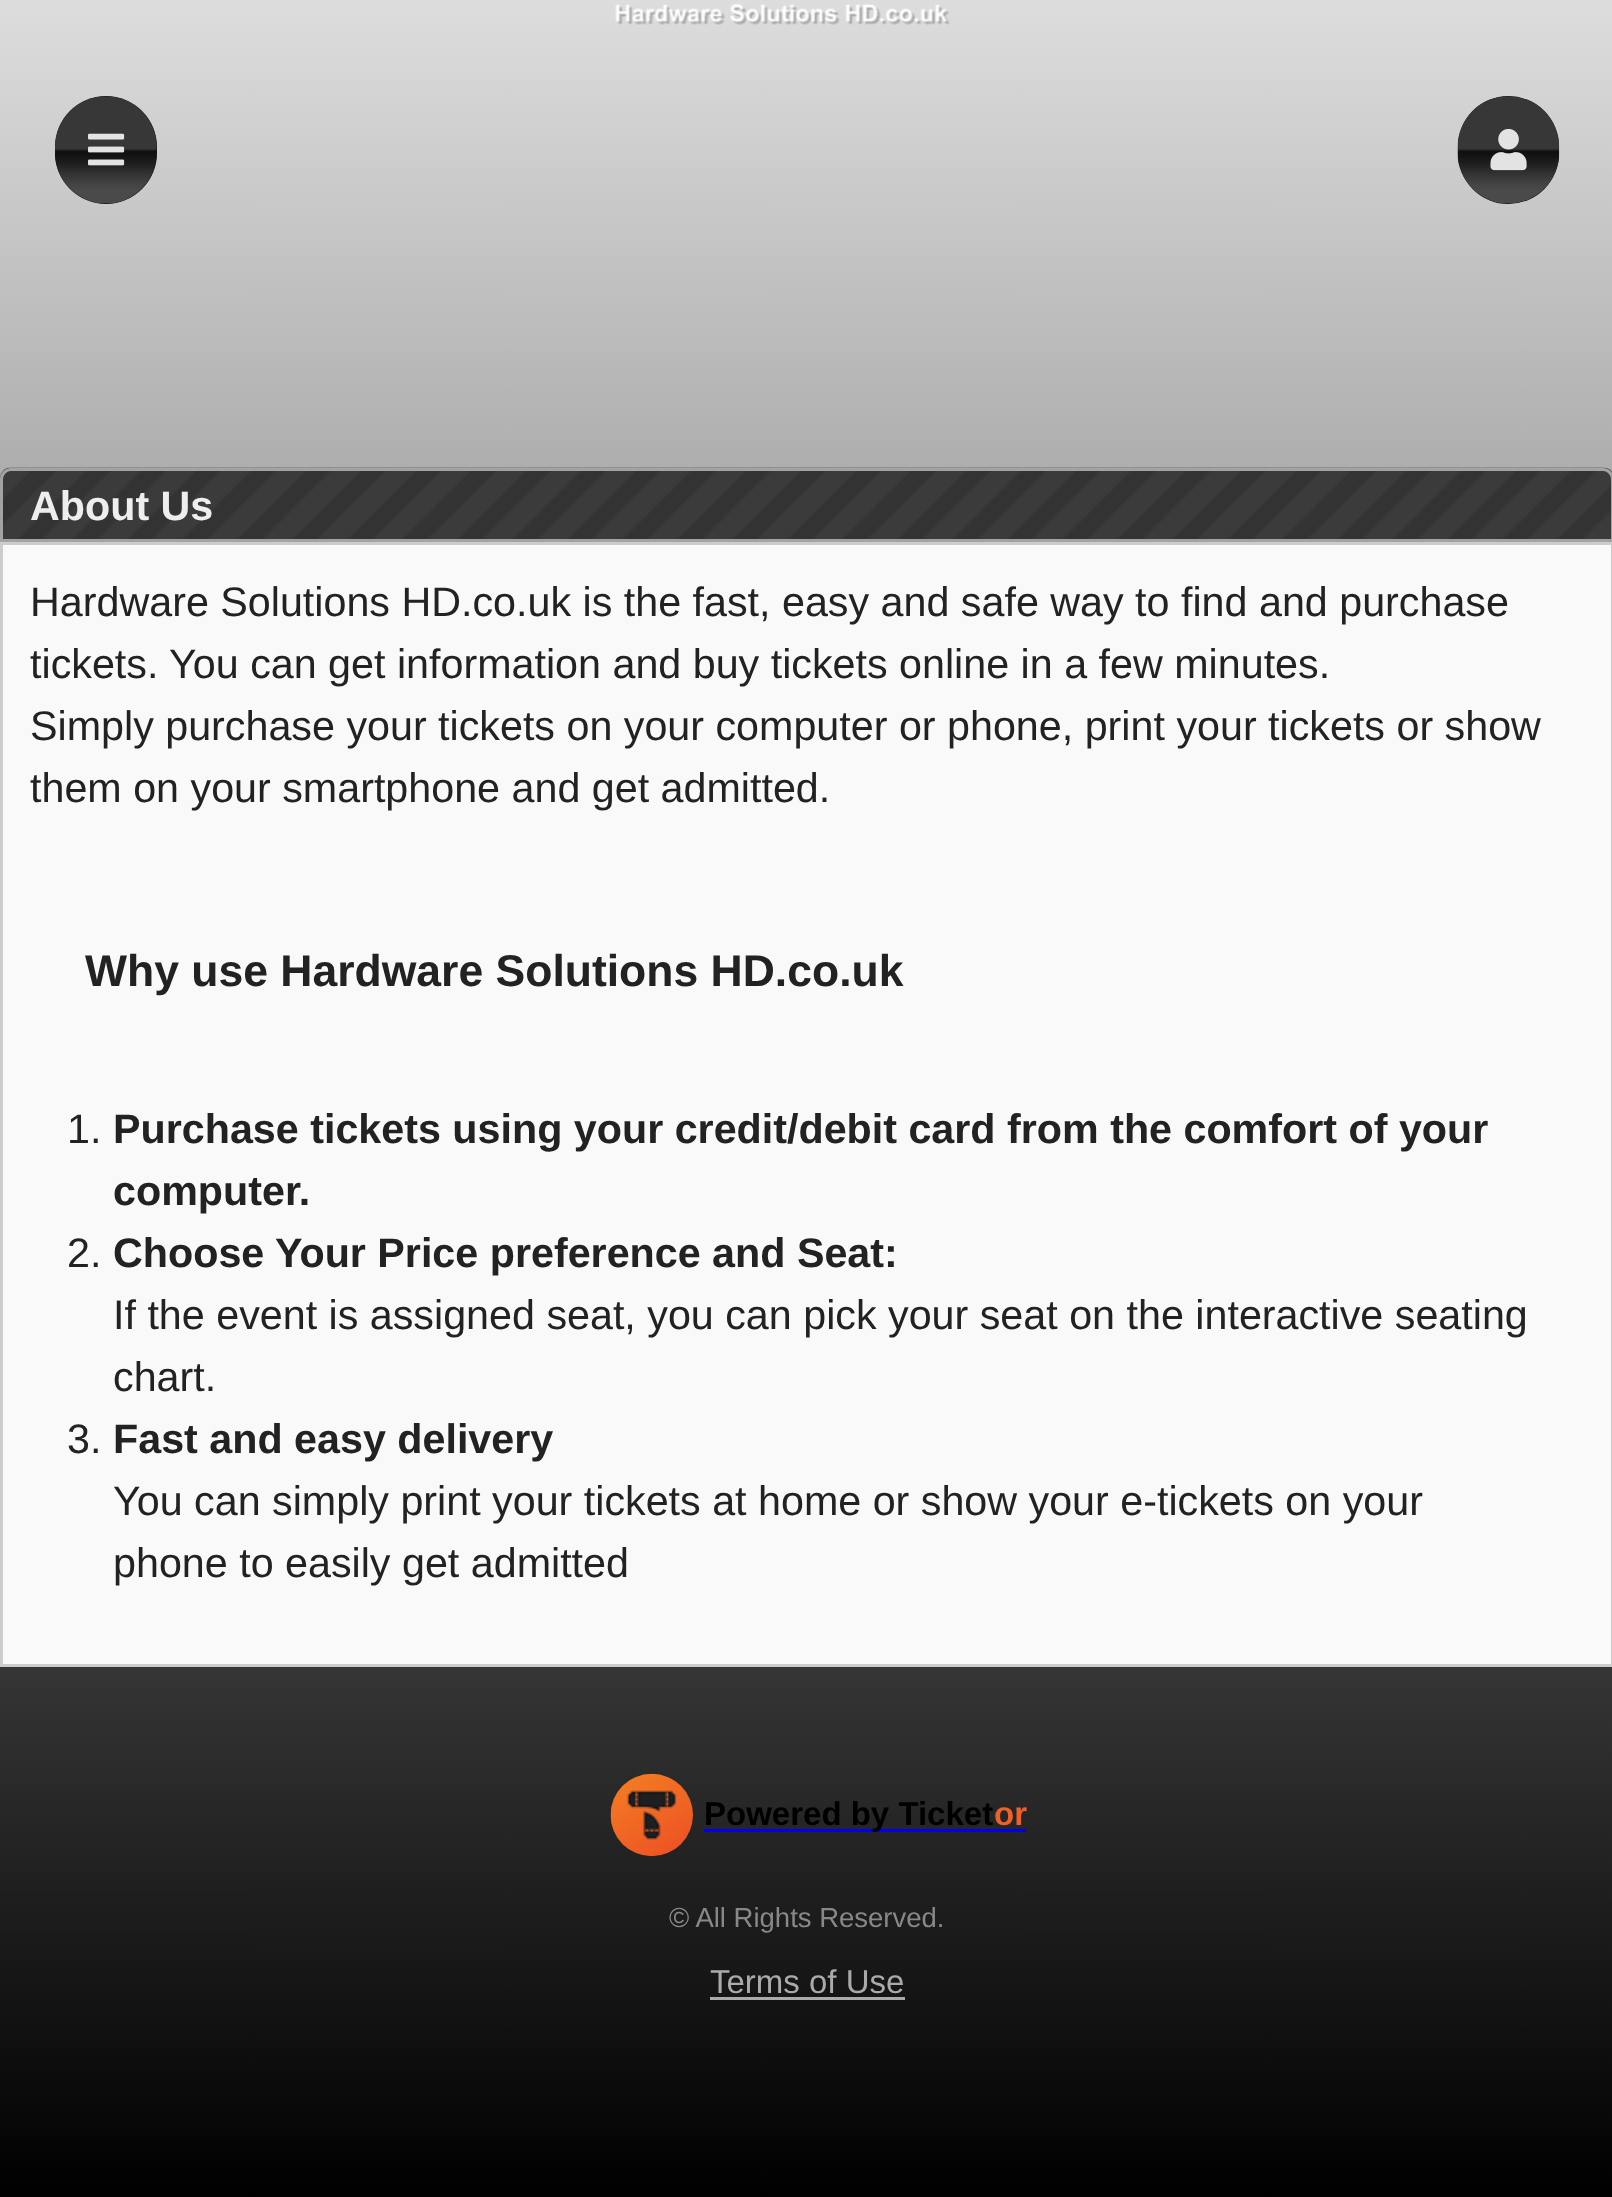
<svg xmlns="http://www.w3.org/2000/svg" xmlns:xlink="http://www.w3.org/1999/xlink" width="1612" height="2197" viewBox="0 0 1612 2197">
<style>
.cls-1{font:bold 41.25px Liberation Sans;fill:#eeeeee}
.cls-2{font:41.25px Liberation Sans;fill:#222222}
.cls-3{font:bold 44.5px Liberation Sans;fill:#222222}
.cls-4{font:bold 41.25px Liberation Sans;fill:#222222}
.cls-5{font:bold 33px Liberation Sans;fill:#000000}
.cls-6{font:bold 33px Liberation Sans;fill:#ed612b}
.cls-7{font:27.5px Liberation Sans;fill:#888888}
.cls-8{font:33px Liberation Sans;fill:#aaaaaa}
</style>
<defs>
<linearGradient id="g1" gradientUnits="userSpaceOnUse" x1="807" y1="0" x2="807" y2="2197"><stop offset="0" stop-color="#dddddd"/><stop offset="1" stop-color="#000000"/></linearGradient>
</defs>
<rect width="100%" height="100%" fill="#ffffff"/>
<rect fill="url(#g1)" x="0" y="0" width="1612" height="2197"/>
<image xlink:href="image0.png" x="615" y="3" width="335" height="22"/>
<rect fill="#111111" x="55" y="96" width="102" height="108" rx="51"/>
<image xlink:href="image1.png" x="55" y="96" width="102" height="108"/>
<image xlink:href="image2.png" x="88" y="133" width="37" height="33"/>
<rect fill="#111111" x="1458" y="96" width="101" height="108" rx="50.5"/>
<image xlink:href="image3.png" x="1457" y="96" width="103" height="108"/>
<image xlink:href="image4.png" x="1490" y="128" width="37" height="43"/>
<image xlink:href="image5.png" x="0" y="467" width="1612" height="72"/>
<path fill="none" stroke="#a3a3a3" stroke-width="3" d="M11 469.5H1603C1608 469.5 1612.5 474 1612.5 479V540.5H1.5V479C1.5 474 6 469.5 11 469.5Z"/>
<rect fill="#f9f9f9" stroke="#cccccc" stroke-width="3" x="1.5" y="543.5" width="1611" height="1122"/>
<image xlink:href="image6.png" x="610" y="1773" width="83" height="84"/>
<rect fill="#0000ee" x="704" y="1829" width="289" height="3"/>
<rect fill="#aaaaaa" x="710" y="1997" width="195" height="3"/>
<text class="cls-1" x="30" y="520">About Us</text>
<text class="cls-2"><tspan x="30" y="616">Hardware Solutions HD.co.uk is the fast, easy and safe way to find and purchase</tspan><tspan x="30" y="678">tickets. You can get information and buy tickets online in a few minutes.</tspan><tspan x="30" y="740">Simply purchase your tickets on your computer or phone, print your tickets or show</tspan><tspan x="30" y="802">them on your smartphone and get admitted.</tspan></text>
<text class="cls-3" x="85" y="986">Why use Hardware Solutions HD.co.uk</text>
<text class="cls-2" x="67" y="1143">1.</text>
<text class="cls-4"><tspan x="113" y="1143">Purchase tickets using your credit/debit card from the comfort of your</tspan><tspan x="113" y="1205">computer.</tspan></text>
<text class="cls-2" x="67" y="1267">2.</text>
<text class="cls-4" x="113" y="1267">Choose Your Price preference and Seat:</text>
<text class="cls-2"><tspan x="113" y="1329">If the event is assigned seat, you can pick your seat on the interactive seating</tspan><tspan x="113" y="1391">chart.</tspan></text>
<text class="cls-2" x="67" y="1453">3.</text>
<text class="cls-4" x="113" y="1453">Fast and easy delivery</text>
<text class="cls-2"><tspan x="113" y="1515">You can simply print your tickets at home or show your e-tickets on your</tspan><tspan x="113" y="1577">phone to easily get admitted</tspan></text>
<text class="cls-5" x="704" y="1825">Powered by Ticket</text>
<rect fill="#0000ee" x="993" y="1829" width="33" height="3"/>
<text class="cls-6" x="994" y="1825">or</text>
<text class="cls-7" x="669" y="1927">© All Rights Reserved.</text>
<text class="cls-8" x="710" y="1993">Terms of Use</text>
</svg>
